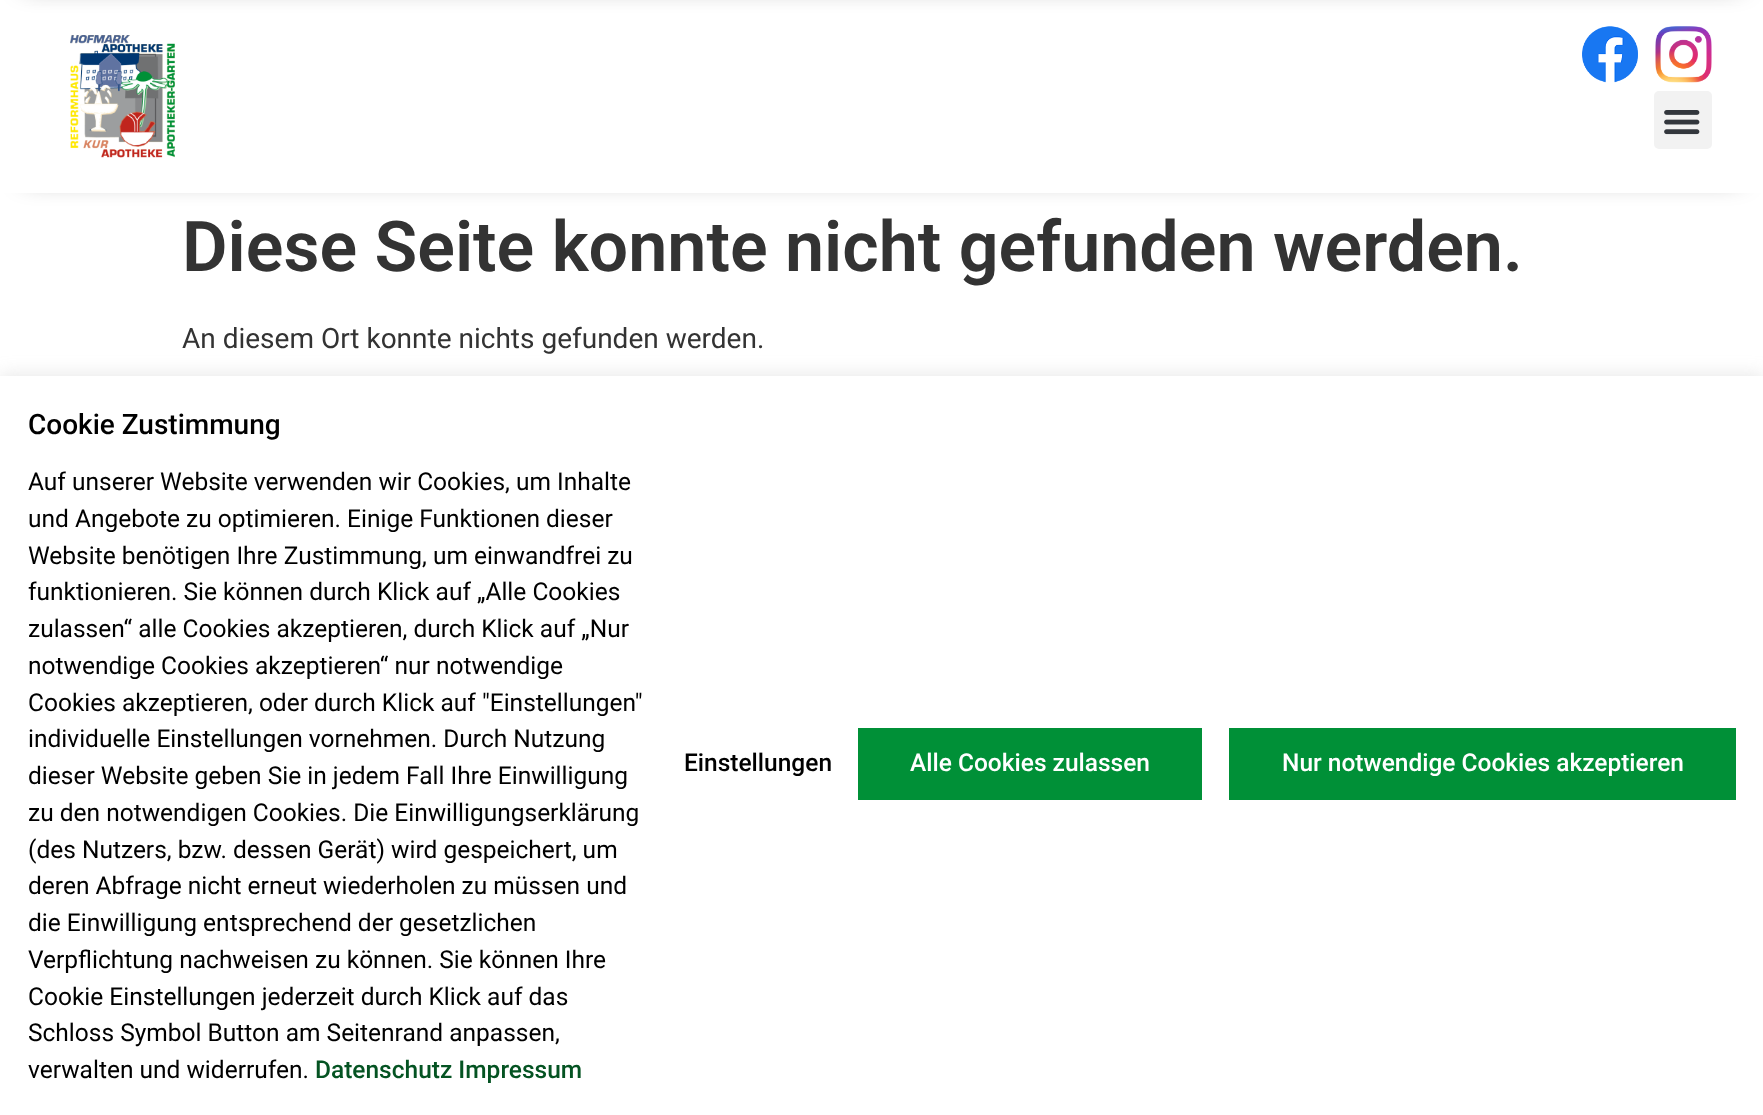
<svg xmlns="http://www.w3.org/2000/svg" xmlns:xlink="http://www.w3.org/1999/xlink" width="1763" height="1115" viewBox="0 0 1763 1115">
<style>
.cls-1{font:600 70px Roboto;fill:#333333}
.cls-2{font:28px Roboto;fill:#333333}
.cls-3{font:500 28px Roboto;fill:#000000}
.cls-4{font:24.5px Roboto;fill:#000000}
.cls-5{font:500 24.5px Roboto;fill:#045322}
.cls-6{font:500 24.5px Roboto;fill:#000000}
.cls-7{font:500 24.5px Roboto;fill:#ffffff}
</style>
<rect width="100%" height="100%" fill="#ffffff"/>
<rect fill="#000000" fill-opacity="0.5" filter="blur(13px)" x="25" y="33" width="1715" height="144"/>
<rect fill="#ffffff" x="0" y="6" width="1763" height="187"/>
<image xlink:href="image0.png" x="70" y="35" width="105" height="123"/>
<image xlink:href="image1.png" x="1582" y="26" width="56" height="57"/>
<image xlink:href="image2.png" x="1655" y="26" width="57" height="57"/>
<rect fill="#f2f2f2" x="1654" y="91" width="58" height="58" rx="5"/>
<image xlink:href="image3.png" x="1664" y="110" width="36" height="25"/>
<rect fill="#000000" fill-opacity="0.5" filter="blur(13px)" x="25" y="-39" width="1715" height="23"/>
<rect fill="#acabab" fill-opacity="0.3" filter="blur(9px)" x="0" y="375" width="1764" height="740"/>
<rect fill="#ffffff" x="0" y="376" width="1763" height="739"/>
<rect fill="#009037" x="858" y="728" width="344" height="72"/>
<rect fill="#009037" x="1229" y="728" width="507" height="72"/>
<text class="cls-1" x="182" y="271">Diese Seite konnte nicht gefunden werden.</text>
<text class="cls-2" x="182" y="348">An diesem Ort konnte nichts gefunden werden.</text>
<text class="cls-3" x="28" y="434">Cookie Zustimmung</text>
<text class="cls-4"><tspan x="28" y="490">Auf unserer Website verwenden wir Cookies, um Inhalte</tspan><tspan x="28" y="527">und Angebote zu optimieren. Einige Funktionen dieser</tspan><tspan x="28" y="564">Website benötigen Ihre Zustimmung, um einwandfrei zu</tspan><tspan x="28" y="600">funktionieren. Sie können durch Klick auf „Alle Cookies</tspan><tspan x="28" y="637">zulassen“ alle Cookies akzeptieren, durch Klick auf „Nur</tspan><tspan x="28" y="674">notwendige Cookies akzeptieren“ nur notwendige</tspan><tspan x="28" y="711">Cookies akzeptieren, oder durch Klick auf "Einstellungen"</tspan><tspan x="28" y="747">individuelle Einstellungen vornehmen. Durch Nutzung</tspan><tspan x="28" y="784">dieser Website geben Sie in jedem Fall Ihre Einwilligung</tspan><tspan x="28" y="821">zu den notwendigen Cookies. Die Einwilligungserklärung</tspan><tspan x="28" y="858">(des Nutzers, bzw. dessen Gerät) wird gespeichert, um</tspan><tspan x="28" y="894">deren Abfrage nicht erneut wiederholen zu müssen und</tspan><tspan x="28" y="931">die Einwilligung entsprechend der gesetzlichen</tspan><tspan x="28" y="968">Verpflichtung nachweisen zu können. Sie können Ihre</tspan><tspan x="28" y="1005">Cookie Einstellungen jederzeit durch Klick auf das</tspan><tspan x="28" y="1041">Schloss Symbol Button am Seitenrand anpassen,</tspan><tspan x="28" y="1078">verwalten und widerrufen.</tspan></text>
<text class="cls-5" x="315" y="1078">Datenschutz Impressum</text>
<text class="cls-6" x="684" y="771">Einstellungen</text>
<text class="cls-7" x="910" y="771">Alle Cookies zulassen</text>
<text class="cls-7" x="1282" y="771">Nur notwendige Cookies akzeptieren</text>
</svg>
